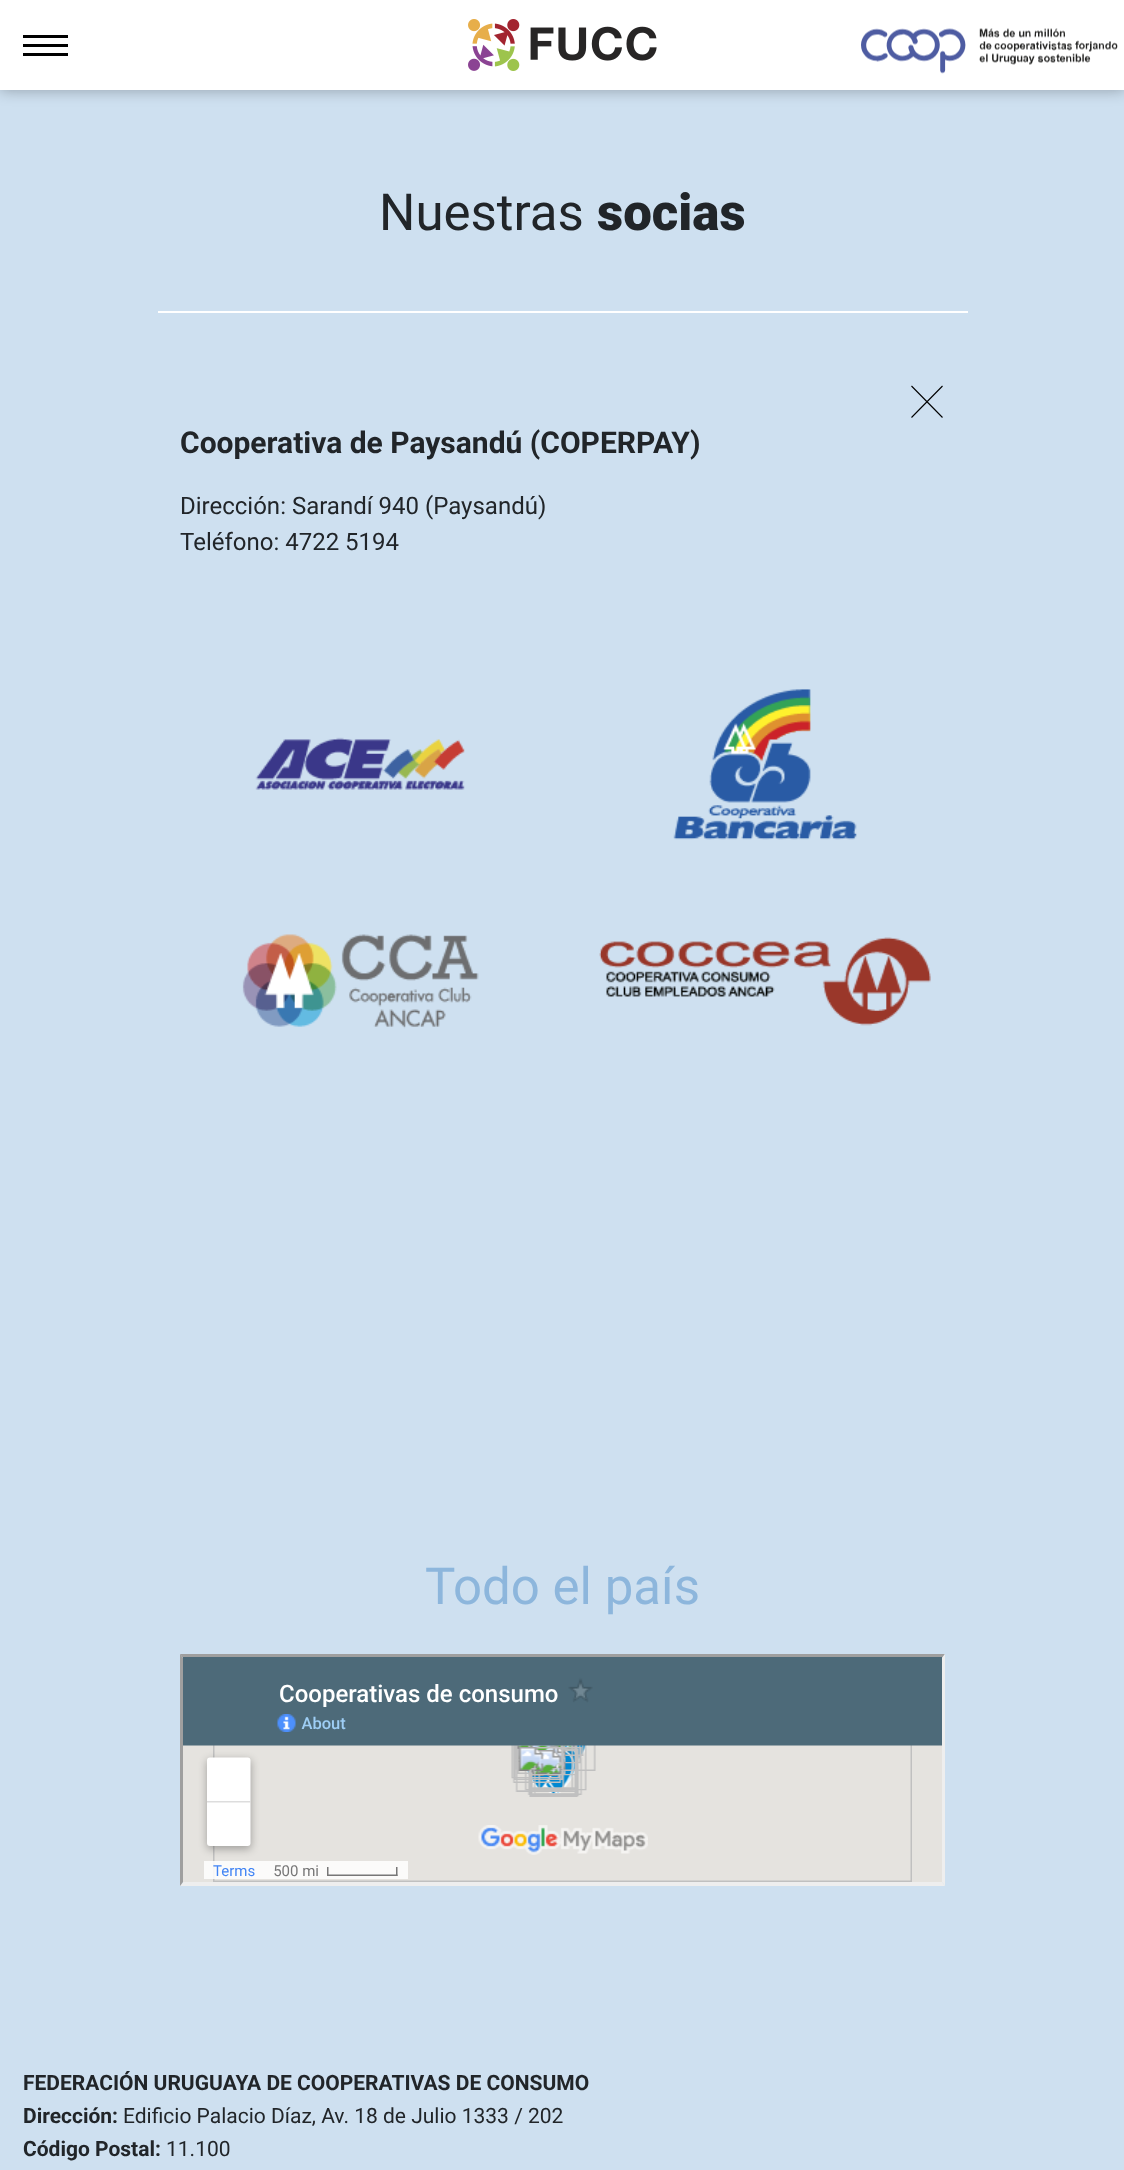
<svg xmlns="http://www.w3.org/2000/svg" xmlns:xlink="http://www.w3.org/1999/xlink" width="1124" height="2170" viewBox="0 0 1124 2170">
<style>
.cls-1{font:51px Roboto;fill:#212529}
.cls-2{font:900 51px Roboto;fill:#212529}
.cls-3{font:bold 30px Roboto;fill:#212529}
.cls-4{font:24px Roboto;fill:#212529}
.cls-5{font:51px Roboto;fill:#8db6dc}
.cls-6{font:bold 21px Roboto;fill:#212529}
.cls-7{font:21px Roboto;fill:#212529}
</style>
<rect width="100%" height="100%" fill="#cee0f0"/>
<rect fill="#000000" fill-opacity="0.3" filter="blur(7.5px)" x="0" y="0" width="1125" height="90"/>
<rect fill="#ffffff" x="0" y="0" width="1124" height="90"/>
<rect fill="#000000" x="23" y="35" width="45" height="3"/>
<rect fill="#000000" x="23" y="44" width="45" height="3"/>
<rect fill="#000000" x="23" y="53" width="45" height="3"/>
<image xlink:href="image0.png" x="468" y="19" width="189" height="52"/>
<image xlink:href="image1.png" x="861" y="28" width="257" height="46"/>
<rect fill="#ffffff" x="158" y="311" width="810" height="2"/>
<path fill="none" stroke="#000000" stroke-width="1.1" d="M911.5 386L942.5 417.5M911.5 417.5L942.5 386"/>
<image xlink:href="image2.png" x="255" y="737" width="210" height="53"/>
<image xlink:href="image3.png" x="673" y="689" width="184" height="151"/>
<image xlink:href="image4.png" x="242" y="934" width="237" height="95"/>
<image xlink:href="image5.png" x="599" y="937" width="332" height="89"/>
<path fill="#9f9f9f" d="M180 1654H945L942 1658H183Z"/>
<path fill="#eeeeee" d="M945 1654V1886L942 1882V1658Z"/>
<path fill="#eeeeee" d="M945 1886H180L183 1882H942Z"/>
<path fill="#9f9f9f" d="M180 1886V1654L183 1658V1882Z"/>
<image xlink:href="image6.png" x="183" y="1657" width="759" height="225"/>
<text class="cls-1" x="379" y="230">Nuestras</text>
<text class="cls-2" x="597" y="230">socias</text>
<text class="cls-3" x="180" y="453">Cooperativa de Paysandú (COPERPAY)</text>
<text class="cls-4"><tspan x="180" y="514">Dirección: Sarandí 940 (Paysandú)</tspan><tspan x="180" y="550">Teléfono: 4722 5194</tspan></text>
<text class="cls-5" x="425" y="1604">Todo el país</text>
<text class="cls-6"><tspan x="23" y="2090">FEDERACIÓN URUGUAYA DE COOPERATIVAS DE CONSUMO</tspan><tspan x="23" y="2123">Dirección:</tspan></text>
<text class="cls-7" x="123" y="2123">Edificio Palacio Díaz, Av. 18 de Julio 1333 / 202</text>
<text class="cls-6" x="23" y="2156">Código Postal:</text>
<text class="cls-7" x="166" y="2156">11.100</text>
</svg>
